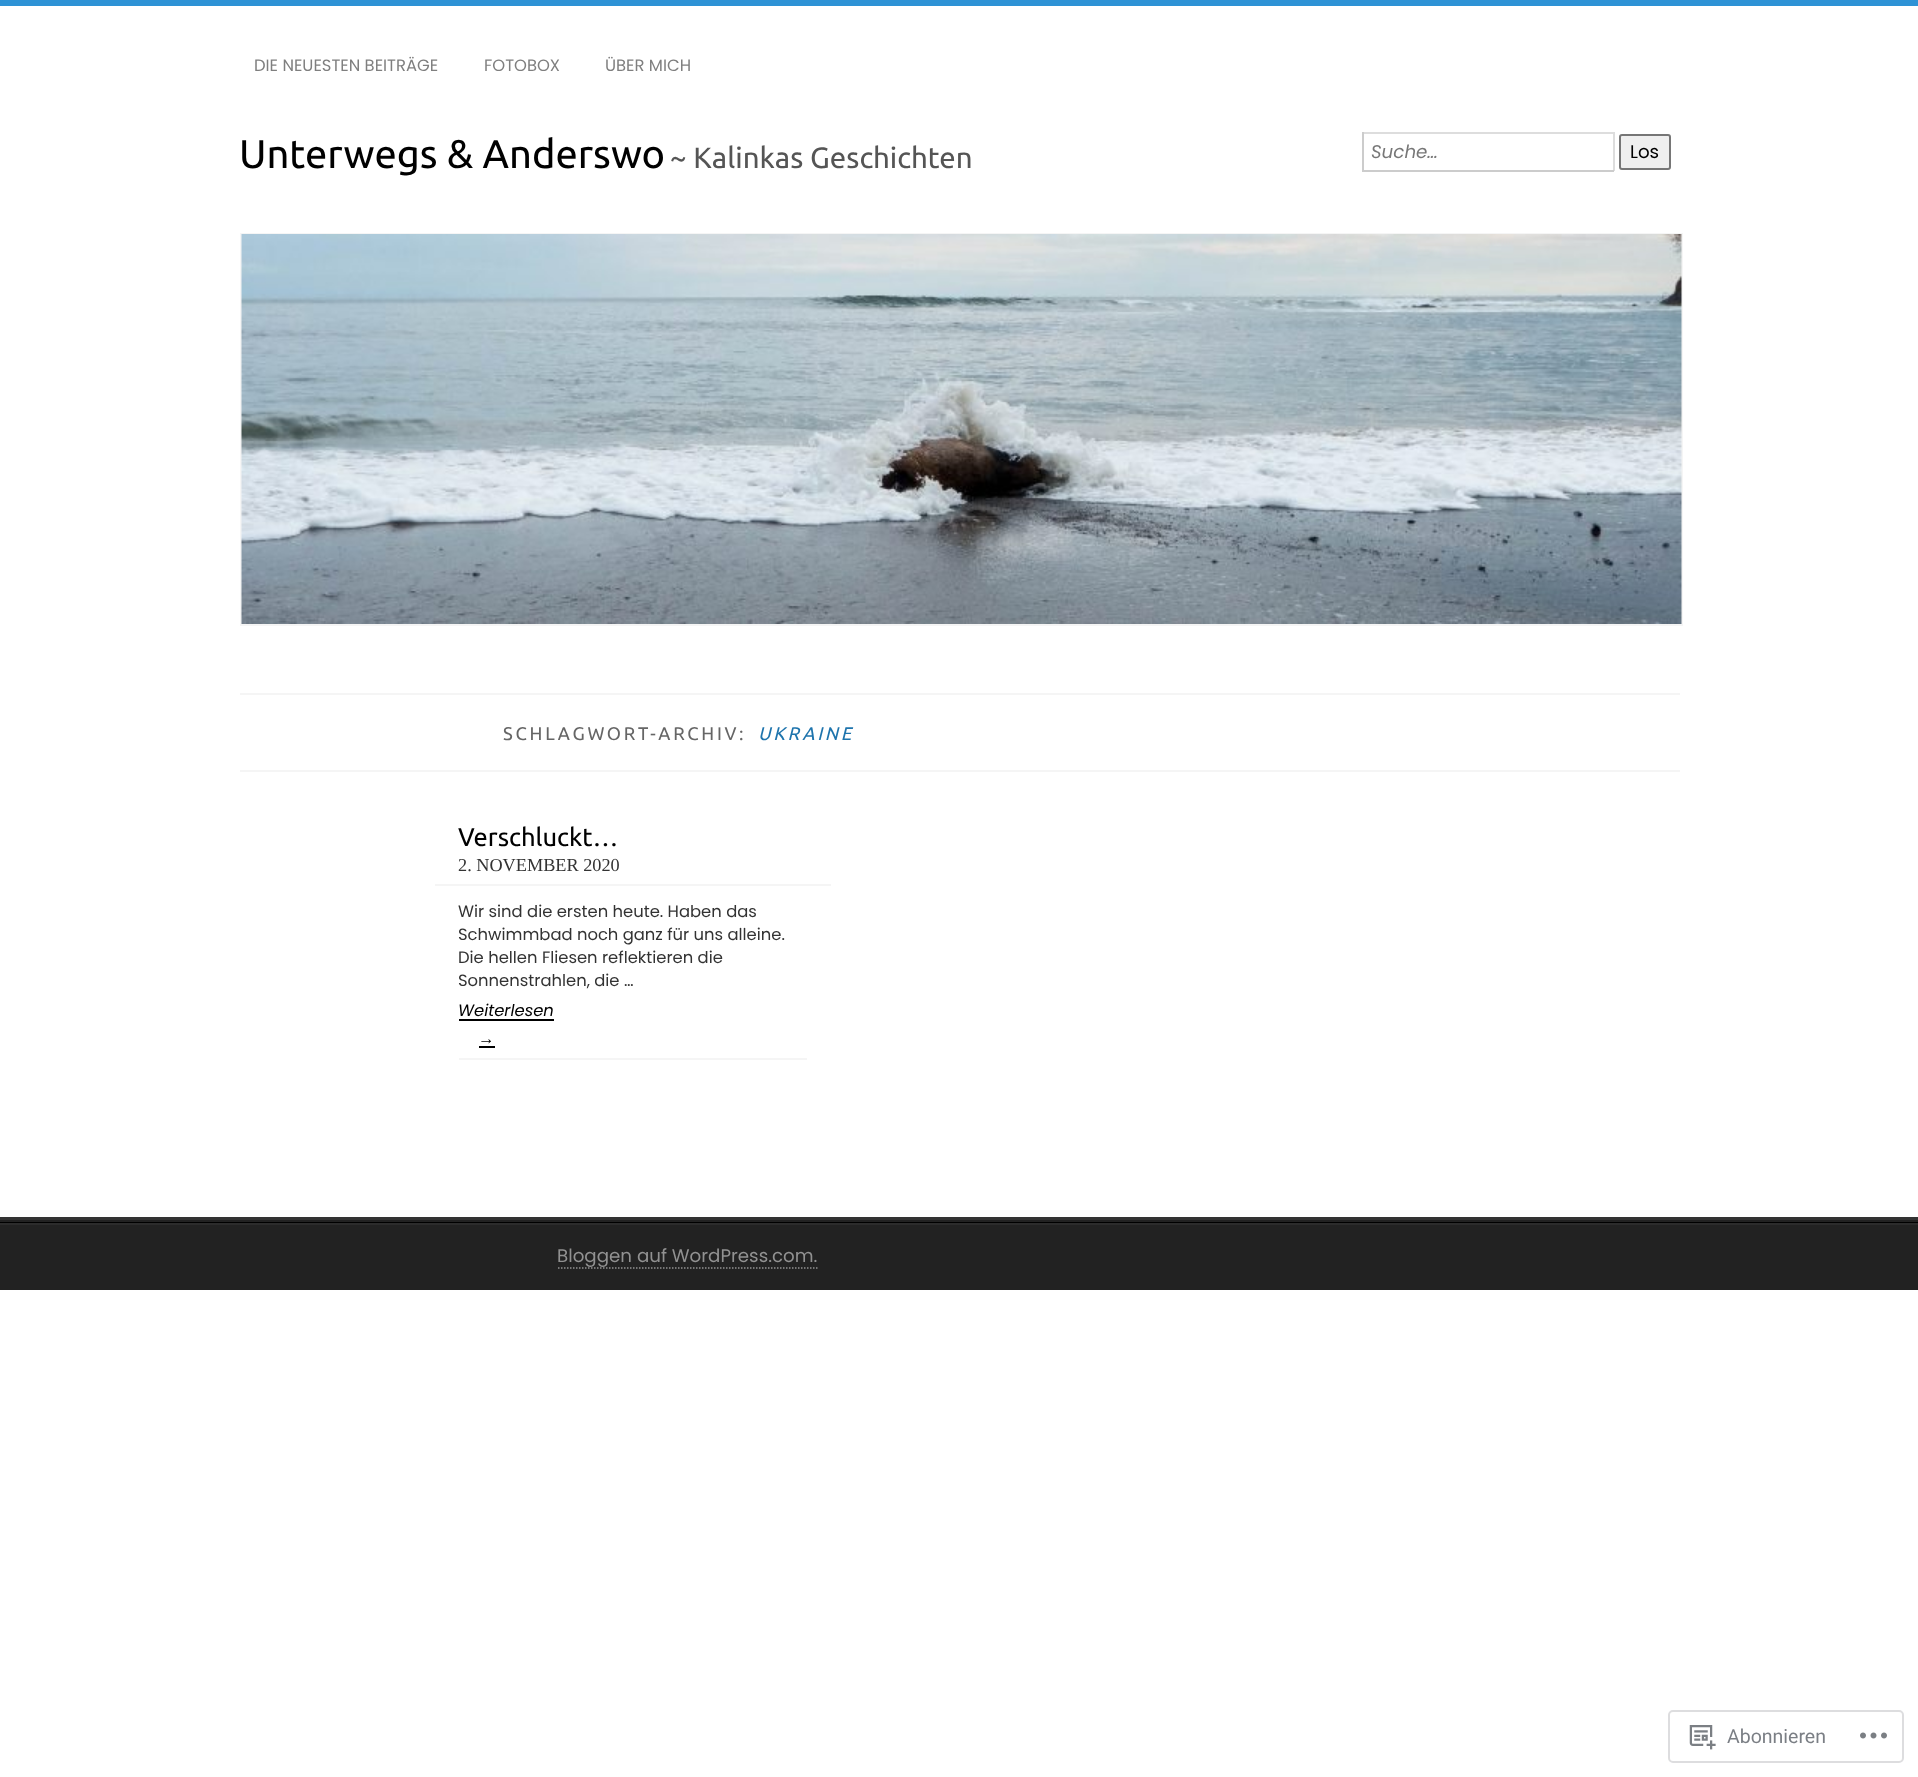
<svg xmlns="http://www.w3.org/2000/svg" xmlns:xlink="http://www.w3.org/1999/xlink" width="1918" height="1777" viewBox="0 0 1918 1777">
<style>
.cls-1{font:16.4px Poppins;fill:#7f7f7f}
.cls-2{font:39.9px Ubuntu;fill:#000000}
.cls-3{font:29.4px Ubuntu;fill:#555555}
.cls-4{font:italic 18.25px Poppins;fill:#777777}
.cls-5{font:18.25px Poppins;fill:#000000}
.cls-6{font:18.25px Ubuntu;letter-spacing:2.75px;fill:#666666}
.cls-7{font:italic 18.25px Ubuntu;letter-spacing:2.75px;fill:#1e74ad}
.cls-8{font:25.5px Ubuntu;fill:#000000}
.cls-9{font:18.25px Liberation Serif;fill:#333333}
.cls-10{font:16.4px Poppins;fill:#333333}
.cls-11{font:italic 16.4px Poppins;fill:#000000}
.cls-12{font:italic 16.4px Liberation Serif;fill:#000000}
.cls-13{font:18.25px Poppins;fill:#919191}
.cls-14{font:19.5px Roboto;fill:#7b7f85}
</style>
<rect width="100%" height="100%" fill="#ffffff"/>
<rect fill="#2e92d5" x="0" y="0" width="1918" height="6"/>
<rect fill="#dddddd" x="1362" y="132" width="252" height="2"/>
<rect fill="#dddddd" x="1613" y="132" width="2" height="39"/>
<rect fill="#cccccc" x="1362" y="170" width="252" height="2"/>
<rect fill="#cccccc" x="1362" y="132" width="2" height="39"/>
<rect fill="#efefef" stroke="#767676" stroke-width="2" x="1620" y="135" width="50" height="34" rx="2"/>
<rect fill="none" stroke="#f5f5f5" stroke-width="2" x="241" y="234" width="1441" height="391"/>
<image xlink:href="image0.png" x="241" y="234" width="1441" height="390"/>
<rect fill="#f5f5f5" x="240" y="693" width="1440" height="2"/>
<rect fill="#f5f5f5" x="240" y="770" width="1440" height="2"/>
<rect fill="#f5f5f5" x="435" y="884" width="396" height="2"/>
<rect fill="#000000" x="459" y="1019" width="95" height="2"/>
<rect fill="#f5f5f5" x="459" y="1058" width="348" height="2"/>
<rect fill="#000000" x="479" y="1046" width="16" height="2"/>
<rect fill="#000000" x="0" y="1222" width="1918" height="1"/>
<rect fill="#333333" x="0" y="1217" width="1918" height="3"/>
<rect fill="#222222" x="0" y="1220" width="1918" height="2"/>
<rect fill="#222222" x="0" y="1225" width="1918" height="65"/>
<rect fill="#2c2c2c" x="0" y="1223" width="1918" height="2"/>
<path fill="none" stroke="#919191" stroke-width="1.5" stroke-dasharray="1.5 1.5" d="M558 1268H817.5"/>
<rect fill="none" stroke="#dddddf" stroke-width="2" x="1669" y="1711" width="234" height="51" rx="4"/>
<image xlink:href="image1.png" x="1689" y="1725" width="27" height="25"/>
<image xlink:href="image2.png" x="1860" y="1732" width="27" height="7"/>
<text class="cls-1" x="254" y="71">DIE NEUESTEN BEITRÄGE</text>
<text class="cls-1" x="484" y="71">FOTOBOX</text>
<text class="cls-1" x="605" y="71">ÜBER MICH</text>
<text class="cls-2" x="239" y="168">Unterwegs &amp; Anderswo</text>
<text class="cls-3" x="670" y="168">~ Kalinkas Geschichten</text>
<text class="cls-4" x="1371" y="158">Suche…</text>
<text class="cls-5" x="1630" y="158">Los</text>
<text class="cls-6" x="503" y="740">SCHLAGWORT-ARCHIV:</text>
<text class="cls-7" x="758" y="740">UKRAINE</text>
<text class="cls-8" x="458" y="846">Verschluckt…</text>
<text class="cls-9" x="458" y="871">2. NOVEMBER 2020</text>
<text class="cls-10"><tspan x="458" y="917">Wir sind die ersten heute. Haben das</tspan><tspan x="458" y="940">Schwimmbad noch ganz für uns alleine.</tspan><tspan x="458" y="963">Die hellen Fliesen reflektieren die</tspan><tspan x="458" y="986">Sonnenstrahlen, die …</tspan></text>
<text class="cls-11" x="458" y="1016">Weiterlesen</text>
<text class="cls-12" x="478" y="1044">→</text>
<text class="cls-13" x="557" y="1262">Bloggen auf WordPress.com.</text>
<text class="cls-14" x="1727" y="1743">Abonnieren</text>
</svg>
